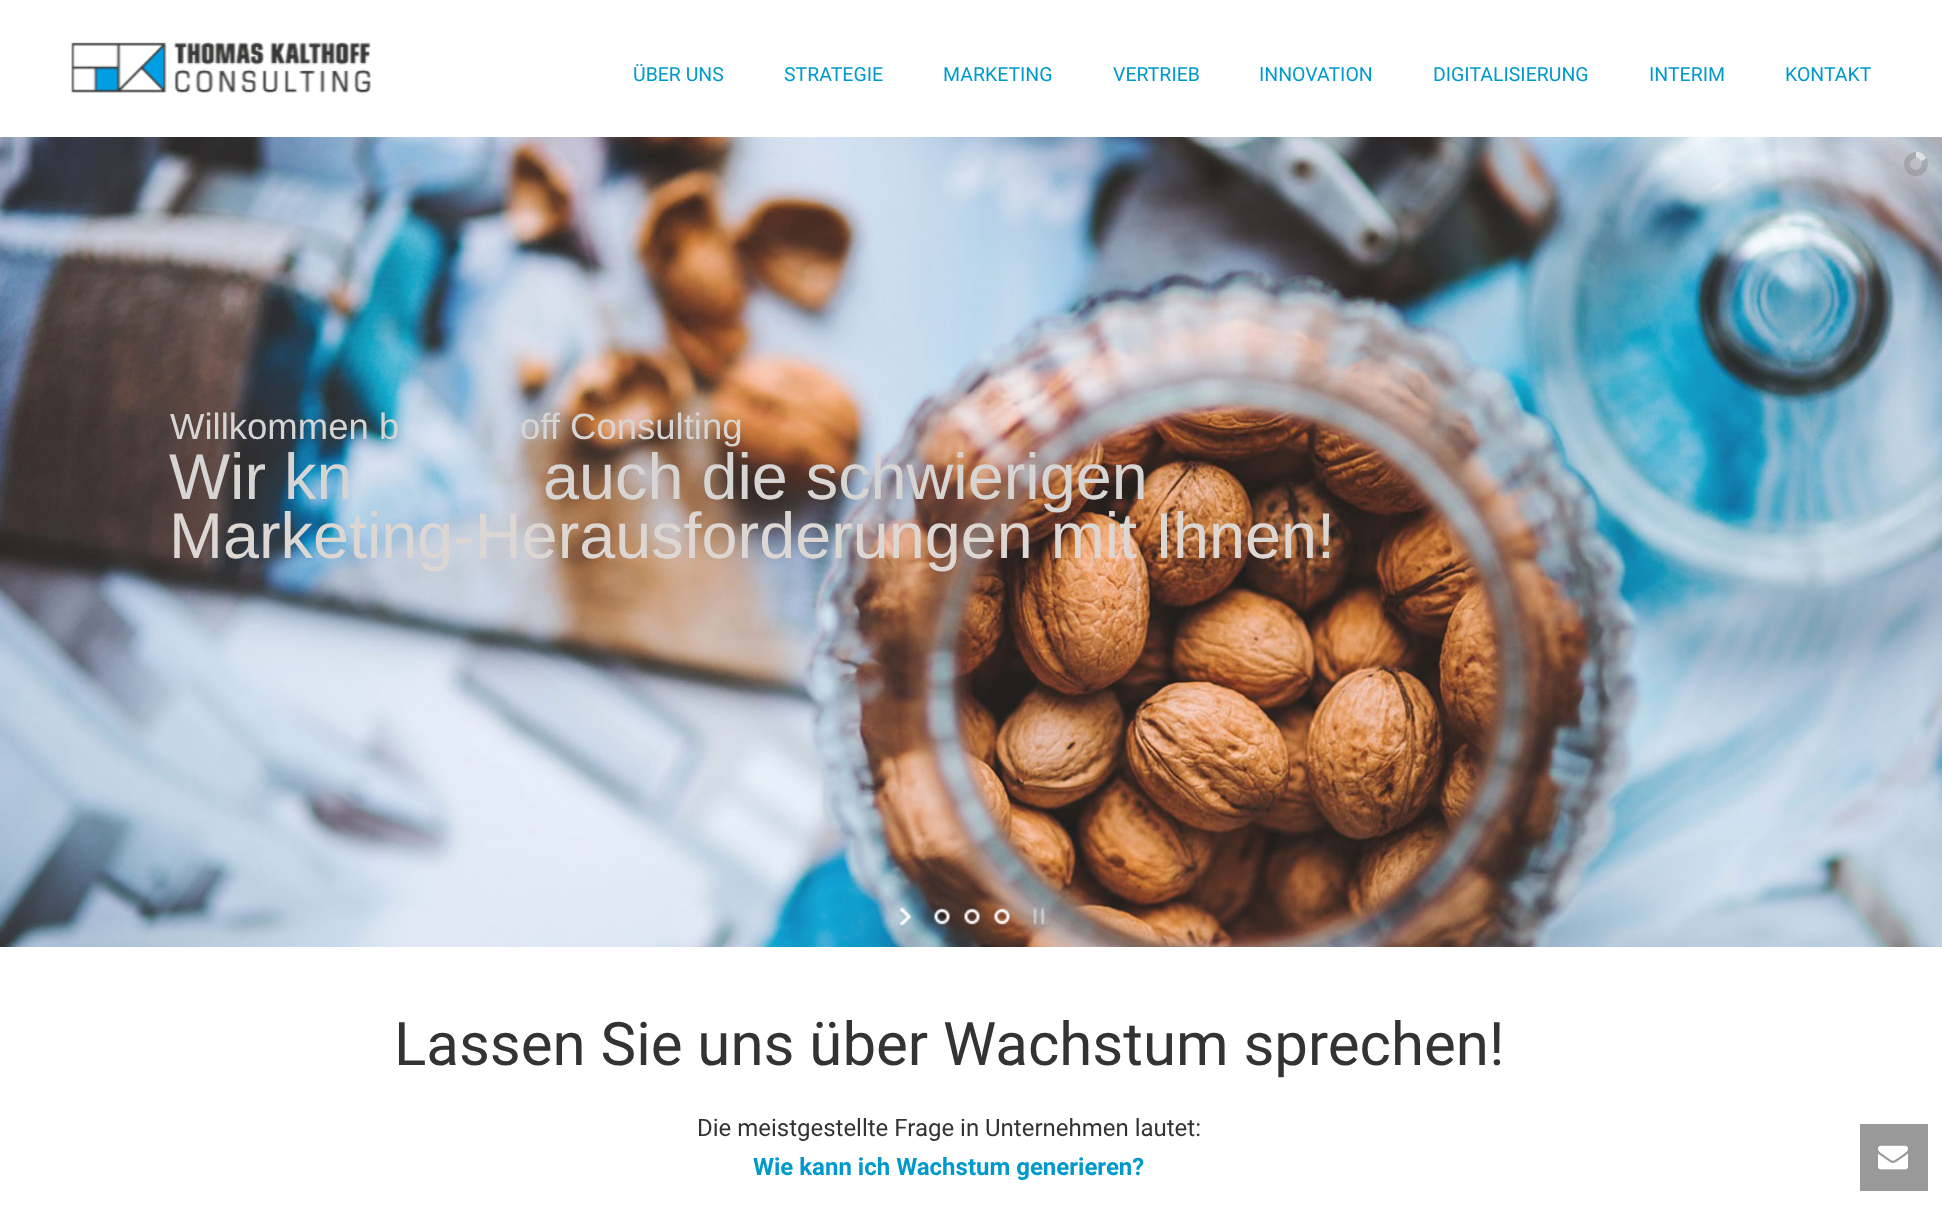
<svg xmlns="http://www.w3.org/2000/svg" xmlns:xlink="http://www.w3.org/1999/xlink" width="1942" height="1213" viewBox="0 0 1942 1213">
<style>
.cls-1{font:19.5px Roboto;fill:#0099cc}
.cls-2{font:36.5px Liberation Sans;fill:#d7d5d4}
.cls-3{font:64.75px Liberation Sans;fill:#d7d5d4}
.cls-4{font:64.75px Liberation Sans;fill:#ddd7d4}
.cls-5{font:60px Roboto;fill:#333333}
.cls-6{font:24px Roboto;fill:#333333}
.cls-7{font:bold 24px Roboto;fill:#0099cc}
</style>
<defs>
<clipPath id="clip1"><rect x="1916" y="152" width="12" height="24"/></clipPath>
<clipPath id="clip2"><path d="M1921 147.5L1926.5 158.5L1904.5 168.5L1899.5 158Z"/></clipPath>
</defs>
<rect width="100%" height="100%" fill="#ffffff"/>
<image xlink:href="image0.png" x="71" y="42" width="300" height="51"/>
<image xlink:href="image1.png" x="0" y="137" width="1942" height="810"/>
<circle fill="none" stroke="#000000" stroke-opacity="0.13" stroke-width="6" cx="1916" cy="164" r="9"/>
<g clip-path="url(#clip1)">
<g clip-path="url(#clip2)">
<path fill="none" stroke="#ffffff" stroke-opacity="0.65" stroke-width="6" d="M1923.5 159.5C1928.5 170 1912.5 178 1907.5 167.5C1902.5 157 1918.5 149 1923.5 159.5Z"/>
</g>
</g>
<image xlink:href="image2.png" x="899" y="907" width="12" height="22"/>
<image xlink:href="image3.png" x="934" y="908" width="16" height="19"/>
<image xlink:href="image4.png" x="964" y="908" width="16" height="18"/>
<image xlink:href="image5.png" x="994" y="908" width="17" height="19"/>
<image xlink:href="image6.png" x="1032" y="907" width="13" height="20"/>
<rect fill="#999999" x="1860" y="1124" width="68" height="67"/>
<image xlink:href="image7.png" x="1878" y="1145" width="30" height="25"/>
<text class="cls-1" x="633" y="81">ÜBER UNS</text>
<text class="cls-1" x="784" y="81">STRATEGIE</text>
<text class="cls-1" x="943" y="81">MARKETING</text>
<text class="cls-1" x="1113" y="81">VERTRIEB</text>
<text class="cls-1" x="1259" y="81">INNOVATION</text>
<text class="cls-1" x="1433" y="81">DIGITALISIERUNG</text>
<text class="cls-1" x="1649" y="81">INTERIM</text>
<text class="cls-1" x="1785" y="81">KONTAKT</text>
<text class="cls-2" x="170" y="439">Willkommen b</text>
<text class="cls-2" x="520" y="439">off Consulting</text>
<text class="cls-3" x="169" y="499">Wir kn</text>
<text class="cls-3" x="543" y="499">auch die schwierigen</text>
<text class="cls-4" x="169" y="558">Marketing-Herausforderungen mit Ihnen!</text>
<text class="cls-5" x="394" y="1065">Lassen Sie uns über Wachstum sprechen!</text>
<text class="cls-6" x="697" y="1136">Die meistgestellte Frage in Unternehmen lautet:</text>
<text class="cls-7" x="753" y="1175">Wie kann ich Wachstum generieren?</text>
</svg>
